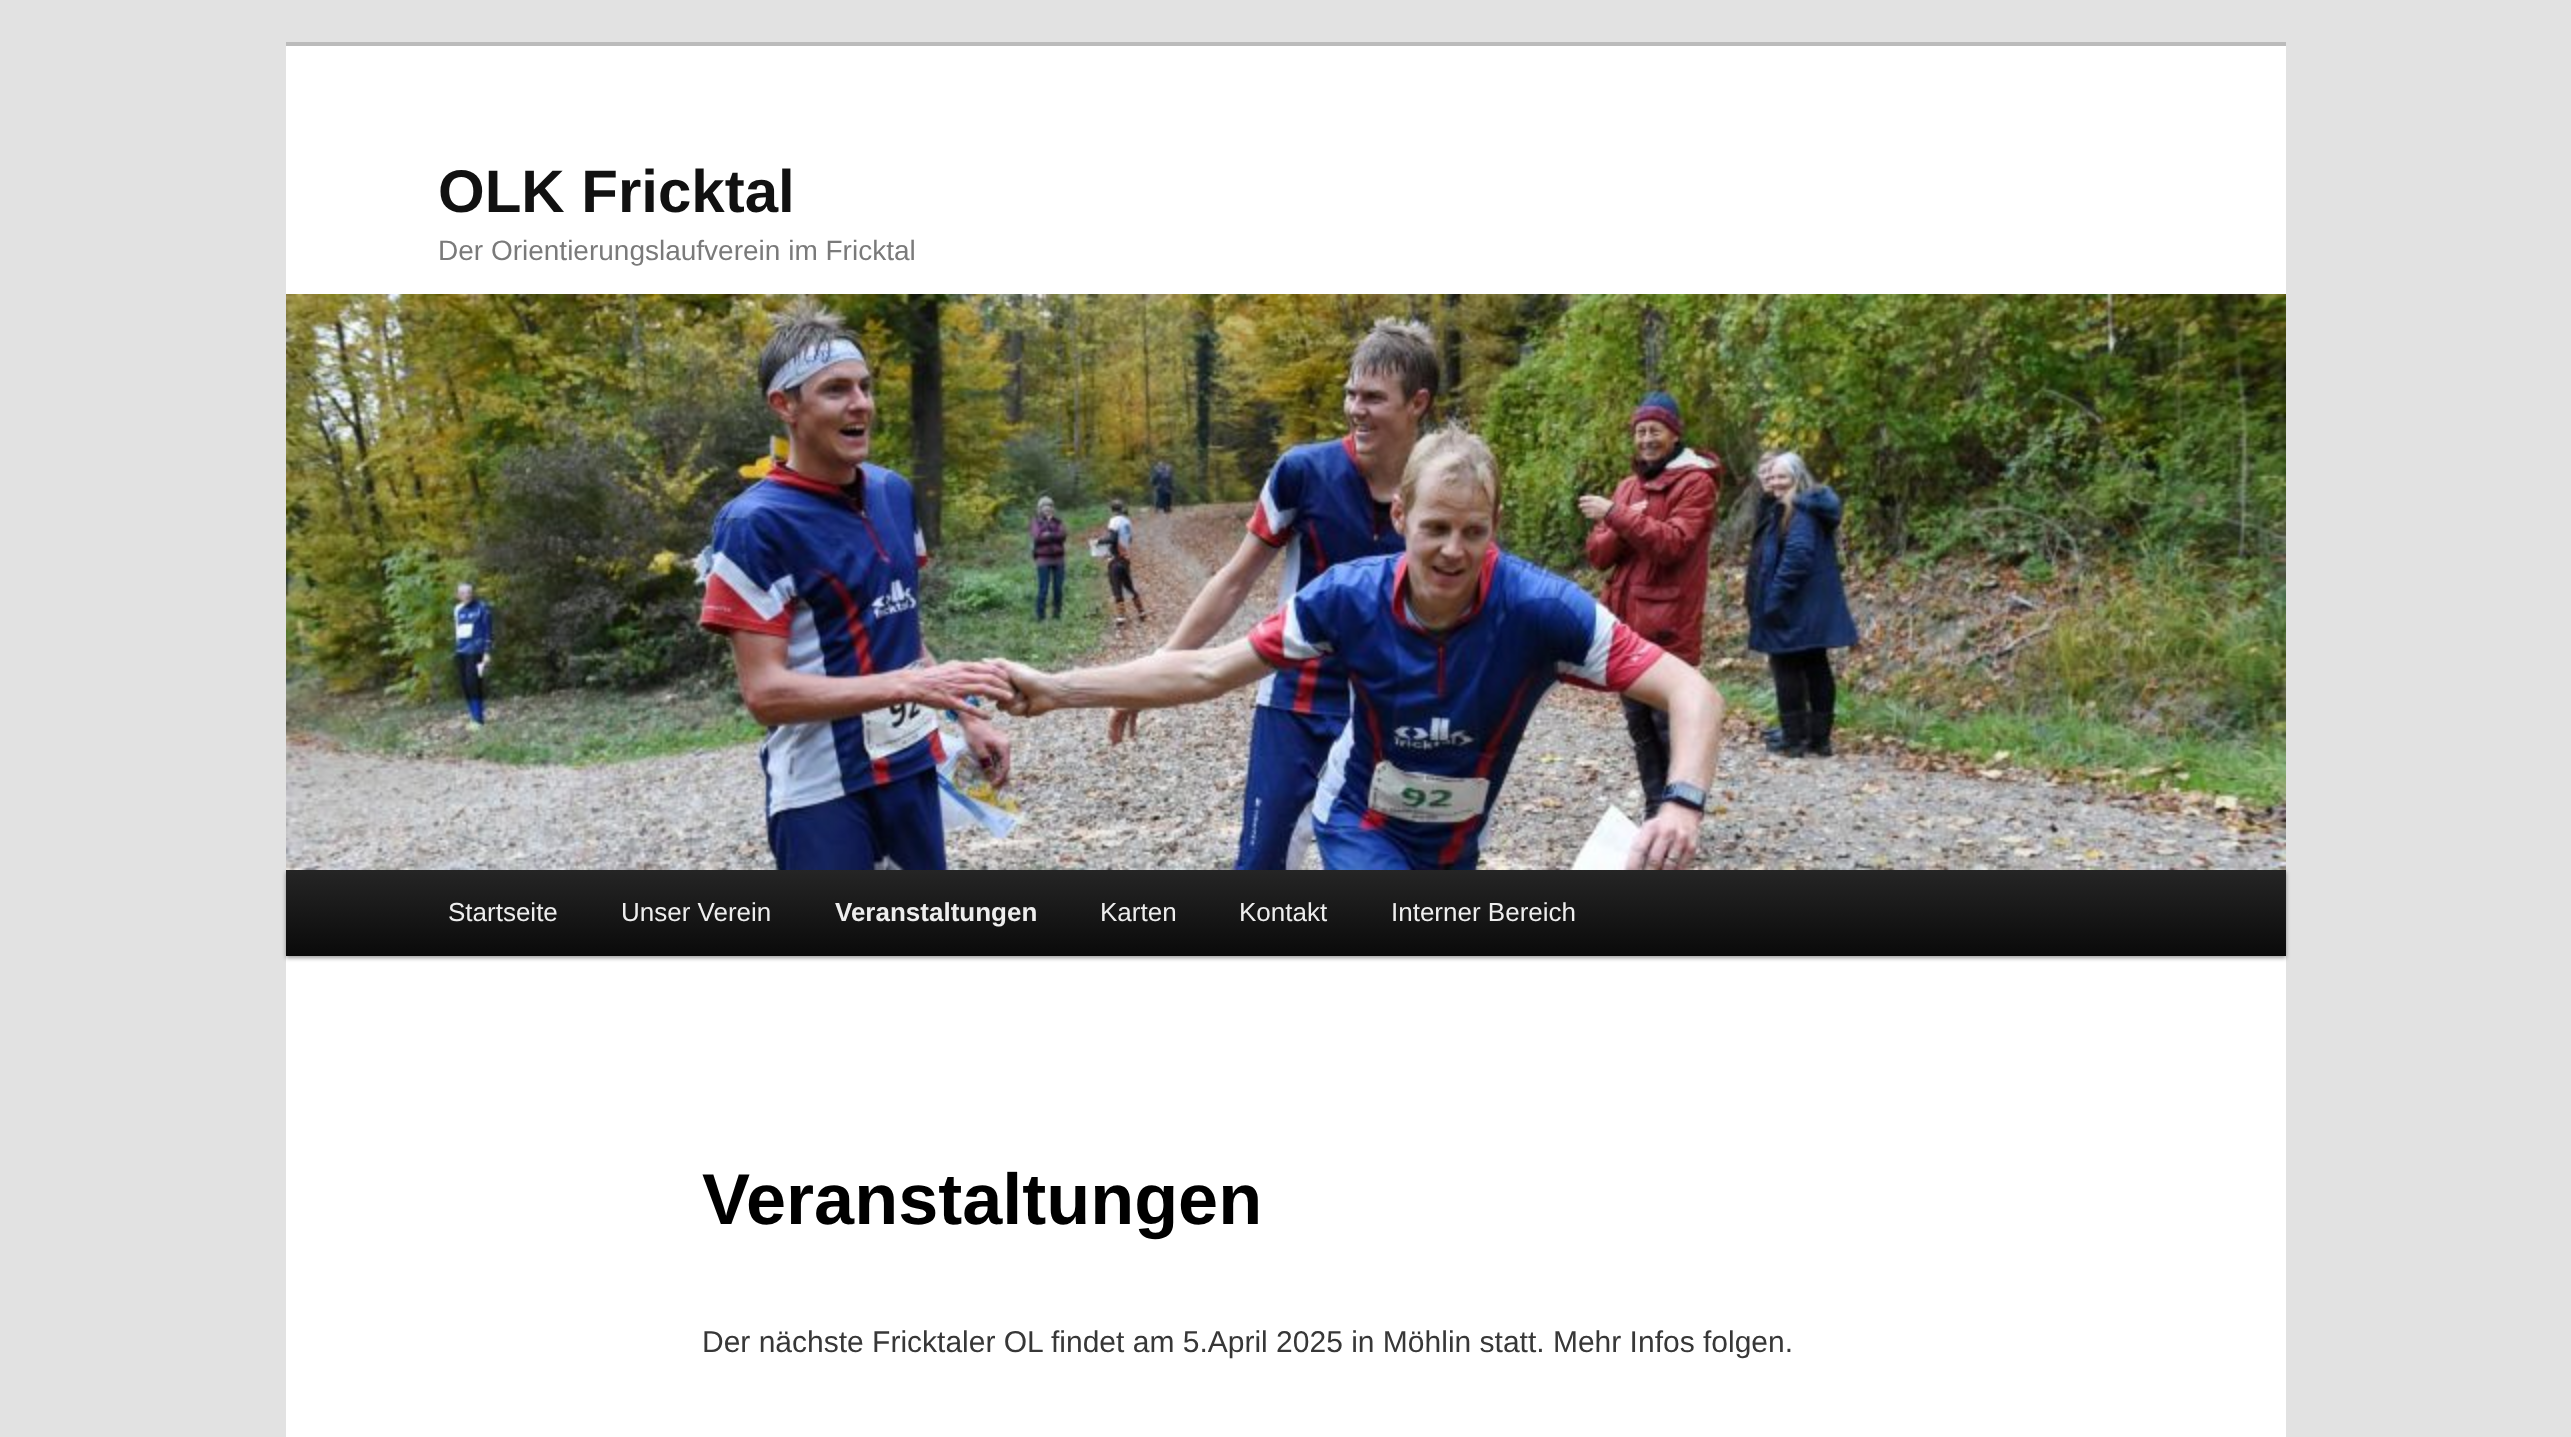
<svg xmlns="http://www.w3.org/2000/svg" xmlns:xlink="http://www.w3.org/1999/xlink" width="2571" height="1437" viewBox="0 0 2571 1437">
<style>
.cls-1{font:bold 60px Liberation Sans;fill:#111111}
.cls-2{font:28px Liberation Sans;fill:#7a7a7a}
.cls-3{font:26px Liberation Sans;fill:#eeeeee}
.cls-4{font:bold 26px Liberation Sans;fill:#eeeeee}
.cls-5{font:bold 72px Liberation Sans;fill:#000000}
.cls-6{font:30px Liberation Sans;fill:#373737}
</style>
<defs>
<linearGradient id="g1" gradientUnits="userSpaceOnUse" x1="1286" y1="870" x2="1286" y2="956"><stop offset="0" stop-color="#252525"/><stop offset="1" stop-color="#0a0a0a"/></linearGradient>
</defs>
<rect width="100%" height="100%" fill="#e2e2e2"/>
<rect fill="#ffffff" x="286" y="46" width="2000" height="1391"/>
<rect fill="#bbbbbb" x="286" y="42" width="2000" height="4"/>
<rect fill="#000000" fill-opacity="0.4" filter="blur(2px)" x="286" y="872" width="2000" height="86"/>
<image xlink:href="image0.png" x="286" y="294" width="2000" height="576"/>
<rect fill="url(#g1)" x="286" y="870" width="2000" height="86"/>
<text class="cls-1" x="438" y="212">OLK Fricktal</text>
<text class="cls-2" x="438" y="260">Der Orientierungslaufverein im Fricktal</text>
<text class="cls-3" x="448" y="921">Startseite</text>
<text class="cls-3" x="621" y="921">Unser Verein</text>
<text class="cls-4" x="835" y="921">Veranstaltungen</text>
<text class="cls-3" x="1100" y="921">Karten</text>
<text class="cls-3" x="1239" y="921">Kontakt</text>
<text class="cls-3" x="1391" y="921">Interner Bereich</text>
<text class="cls-5" x="702" y="1224">Veranstaltungen</text>
<text class="cls-6" x="702" y="1352">Der nächste Fricktaler OL findet am 5.April 2025 in Möhlin statt. Mehr Infos folgen.</text>
</svg>
